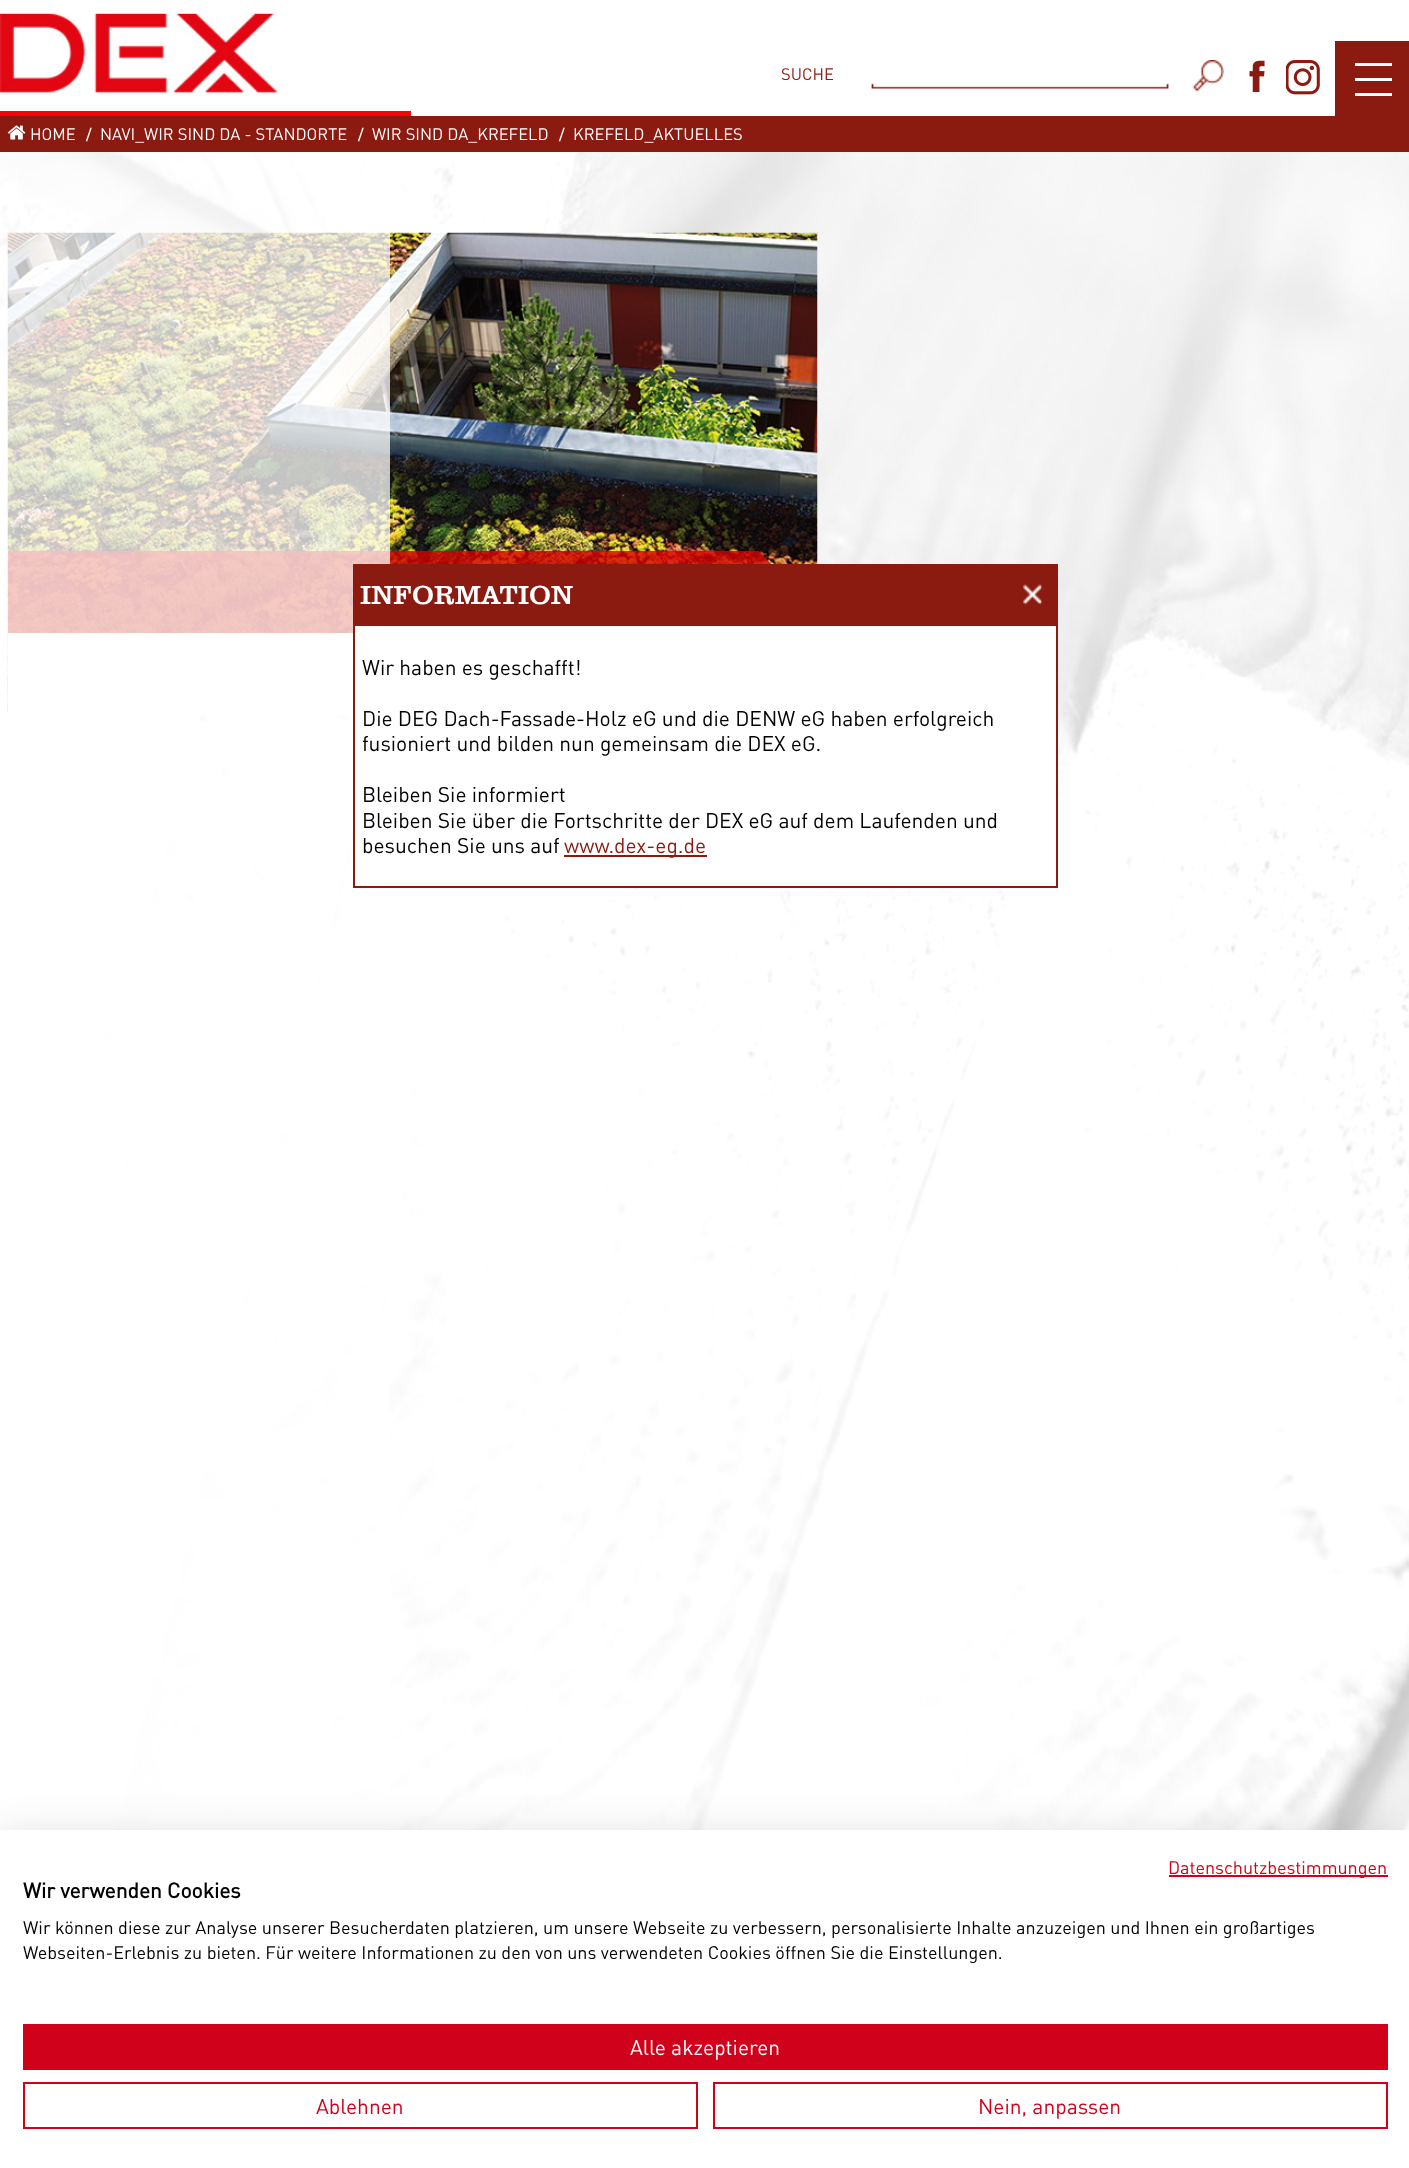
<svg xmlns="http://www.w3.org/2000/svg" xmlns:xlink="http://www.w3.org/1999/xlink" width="1409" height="2168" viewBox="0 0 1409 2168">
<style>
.cls-1{font:16.5px DIN;fill:#8b1b10}
.cls-2{font:16.5px DIN;fill:#ffffff}
.cls-3{font:bold 20px Liberation Serif;fill:#ffffff}
.cls-4{font:27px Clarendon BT;fill:#ffffff}
.cls-5{font:21px DIN;fill:#000000}
.cls-6{font:21px DIN;fill:#8b1b10}
.cls-7{font:18px DIN;fill:#d0021b}
.cls-8{font:bold 21px DIN;fill:#000000}
.cls-9{font:18px DIN;fill:#000000}
.cls-10{font:21px DIN;fill:#ffffff}
.cls-11{font:21px DIN;fill:#d0021b}
</style>
<rect width="100%" height="100%" fill="#ffffff"/>
<image xlink:href="image0.png" x="0" y="152" width="1409" height="1678"/>
<rect fill="#ff0006" x="0" y="111" width="411" height="5"/>
<image xlink:href="image1.png" x="0" y="13" width="278" height="80"/>
<image xlink:href="image2.png" x="871" y="83" width="298" height="6"/>
<image xlink:href="image3.png" x="1192" y="60" width="32" height="32"/>
<image xlink:href="image4.png" x="1249" y="60" width="16" height="32"/>
<image xlink:href="image5.png" x="1286" y="60" width="34" height="35"/>
<rect fill="#8b1b10" x="1335" y="41" width="74" height="75"/>
<rect fill="#ffffff" x="1355" y="63" width="37" height="3"/>
<rect fill="#ffffff" x="1355" y="78" width="37" height="3"/>
<rect fill="#ffffff" x="1355" y="93" width="37" height="3"/>
<rect fill="#8b1b10" x="0" y="116" width="1409" height="36"/>
<image xlink:href="image6.png" x="7" y="125" width="19" height="15"/>
<image xlink:href="image7.png" x="7" y="232" width="811" height="481"/>
<rect fill="#d40000" fill-opacity="0.8" x="8" y="551" width="750" height="82"/>
<path fill="#d40000" fill-opacity="0.8" d="M757.5 580V550L772.5 565Z"/>
<rect fill="#ffffff" x="8" y="633" width="345" height="80"/>
<rect fill="#ffffff" fill-opacity="0.75" x="0" y="152" width="390" height="1678"/>
<rect fill="#8b1b10" x="353" y="564" width="705" height="60"/>
<image xlink:href="image8.png" x="1023" y="584" width="20" height="21"/>
<rect fill="#ffffff" stroke="#8b1b10" stroke-width="2" x="354" y="625" width="703" height="262"/>
<rect fill="#8b1b10" x="564" y="855" width="143" height="2"/>
<rect fill="#000000" fill-opacity="0.1" filter="blur(18px)" x="0" y="1830" width="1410" height="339"/>
<rect fill="#ffffff" x="0" y="1830" width="1409" height="338"/>
<rect fill="#d0021b" x="1169" y="1875" width="219" height="2"/>
<rect fill="#d0021b" x="23" y="2024" width="1365" height="46"/>
<rect fill="none" stroke="#d0021b" stroke-width="2" x="24" y="2083" width="673" height="45"/>
<rect fill="none" stroke="#d0021b" stroke-width="2" x="714" y="2083" width="673" height="45"/>
<text class="cls-1" x="781" y="80">SUCHE</text>
<text class="cls-2" x="30" y="140">HOME</text>
<text class="cls-3" x="86" y="141">/</text>
<text class="cls-2" x="100" y="140">NAVI_WIR SIND DA - STANDORTE</text>
<text class="cls-3" x="358" y="141">/</text>
<text class="cls-2" x="372" y="140">WIR SIND DA_KREFELD</text>
<text class="cls-3" x="559" y="141">/</text>
<text class="cls-2" x="573" y="140">KREFELD_AKTUELLES</text>
<text class="cls-4" x="360" y="604">INFORMATION</text>
<text class="cls-5" x="362" y="675">Wir haben es geschafft!</text>
<text class="cls-5"><tspan x="362" y="726">Die DEG Dach-Fassade-Holz eG und die DENW eG haben erfolgreich</tspan><tspan x="362" y="751">fusioniert und bilden nun gemeinsam die DEX eG.</tspan></text>
<text class="cls-5"><tspan x="362" y="802">Bleiben Sie informiert</tspan><tspan x="362" y="828">Bleiben Sie über die Fortschritte der DEX eG auf dem Laufenden und</tspan><tspan x="362" y="853">besuchen Sie uns auf</tspan></text>
<text class="cls-6" x="564" y="853">www.dex-eg.de</text>
<text class="cls-7" x="1168" y="1874">Datenschutzbestimmungen</text>
<text class="cls-8" x="23" y="1898">Wir verwenden Cookies</text>
<text class="cls-9"><tspan x="23" y="1934">Wir können diese zur Analyse unserer Besucherdaten platzieren, um unsere Webseite zu verbessern, personalisierte Inhalte anzuzeigen und Ihnen ein großartiges</tspan><tspan x="23" y="1959">Webseiten-Erlebnis zu bieten. Für weitere Informationen zu den von uns verwendeten Cookies öffnen Sie die Einstellungen.</tspan></text>
<text class="cls-10" x="630" y="2055">Alle akzeptieren</text>
<text class="cls-11" x="316" y="2114">Ablehnen</text>
<text class="cls-11" x="978" y="2114">Nein, anpassen</text>
</svg>
